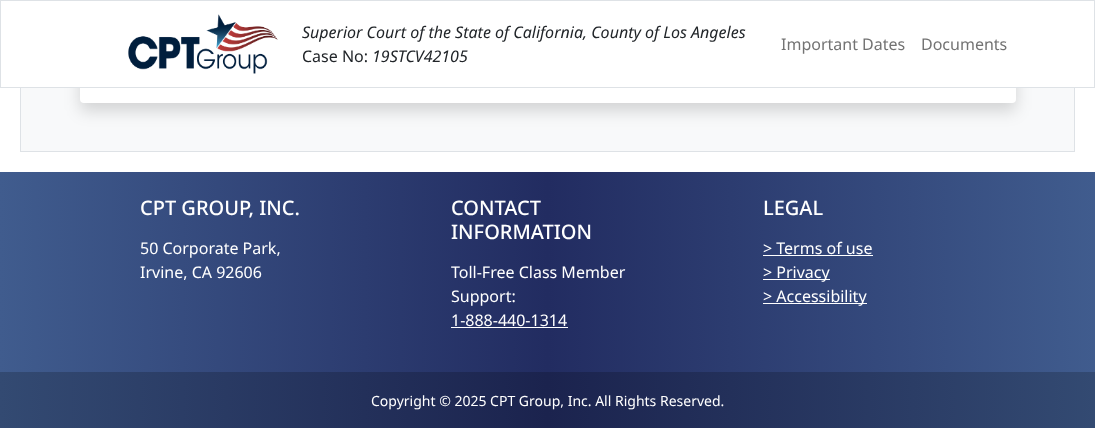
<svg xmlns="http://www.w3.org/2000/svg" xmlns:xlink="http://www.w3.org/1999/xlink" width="1095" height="428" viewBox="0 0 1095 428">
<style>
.cls-1{font:italic 16px Noto Sans;fill:#212529}
.cls-2{font:16px Noto Sans;fill:#212529}
.cls-3{font:16px Noto Sans;fill:#737373}
.cls-4{font:500 20px Noto Sans;fill:#ffffff}
.cls-5{font:16px Noto Sans;fill:#ffffff}
.cls-6{font:14px Noto Sans;fill:#ffffff}
</style>
<defs>
<linearGradient id="g1" gradientUnits="userSpaceOnUse" x1="0" y1="300" x2="1095" y2="300"><stop offset="0" stop-color="#405c8e"/><stop offset="0.5" stop-color="#222c61"/><stop offset="1" stop-color="#405c8e"/></linearGradient>
<linearGradient id="g2" gradientUnits="userSpaceOnUse" x1="0" y1="300" x2="1095" y2="300"><stop offset="0" stop-color="#334a72"/><stop offset="0.5" stop-color="#1b234e"/><stop offset="1" stop-color="#334a72"/></linearGradient>
</defs>
<rect width="100%" height="100%" fill="#ffffff"/>
<rect fill="#f8f9fa" x="21" y="88" width="1053" height="63"/>
<rect fill="none" stroke="#dee2e6" x="20.5" y="-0.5" width="1054" height="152"/>
<rect fill="#000000" fill-opacity="0.15" filter="blur(8px)" x="80" y="-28" width="936" height="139" rx="4"/>
<rect fill="#ffffff" x="80" y="-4" width="936" height="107" rx="4"/>
<rect fill="#ffffff" x="20" y="1" width="1055" height="86"/>
<rect fill="none" stroke="#dee2e6" x="0.5" y="0.5" width="1094" height="87"/>
<image xlink:href="image0.png" x="128" y="14" width="150" height="60"/>
<rect fill="url(#g1)" x="0" y="172" width="1095" height="200"/>
<rect fill="url(#g2)" x="0" y="372" width="1095" height="56"/>
<rect fill="#ffffff" x="451" y="327" width="117" height="1"/>
<rect fill="#ffffff" x="763" y="255" width="110" height="1"/>
<rect fill="#ffffff" x="763" y="279" width="67" height="1"/>
<rect fill="#ffffff" x="763" y="303" width="104" height="1"/>
<text class="cls-1" x="302" y="38">Superior Court of the State of California, County of Los Angeles</text>
<text class="cls-2" x="302" y="62">Case No:</text>
<text class="cls-1" x="372" y="62">19STCV42105</text>
<text class="cls-3" x="781" y="50">Important Dates</text>
<text class="cls-3" x="921" y="50">Documents</text>
<text class="cls-4" x="140" y="215">CPT GROUP, INC.</text>
<text class="cls-5"><tspan x="140" y="254">50 Corporate Park,</tspan><tspan x="140" y="278">Irvine, CA 92606</tspan></text>
<text class="cls-4"><tspan x="451" y="215">CONTACT</tspan><tspan x="451" y="239">INFORMATION</tspan></text>
<text class="cls-5"><tspan x="451" y="278">Toll-Free Class Member</tspan><tspan x="451" y="302">Support:</tspan><tspan x="451" y="326">1-888-440-1314</tspan></text>
<text class="cls-4" x="763" y="215">LEGAL</text>
<text class="cls-5"><tspan x="763" y="254">&gt; Terms of use</tspan><tspan x="763" y="278">&gt; Privacy</tspan><tspan x="763" y="302">&gt; Accessibility</tspan></text>
<text class="cls-6" x="371" y="406">Copyright © 2025 CPT Group, Inc. All Rights Reserved.</text>
</svg>
